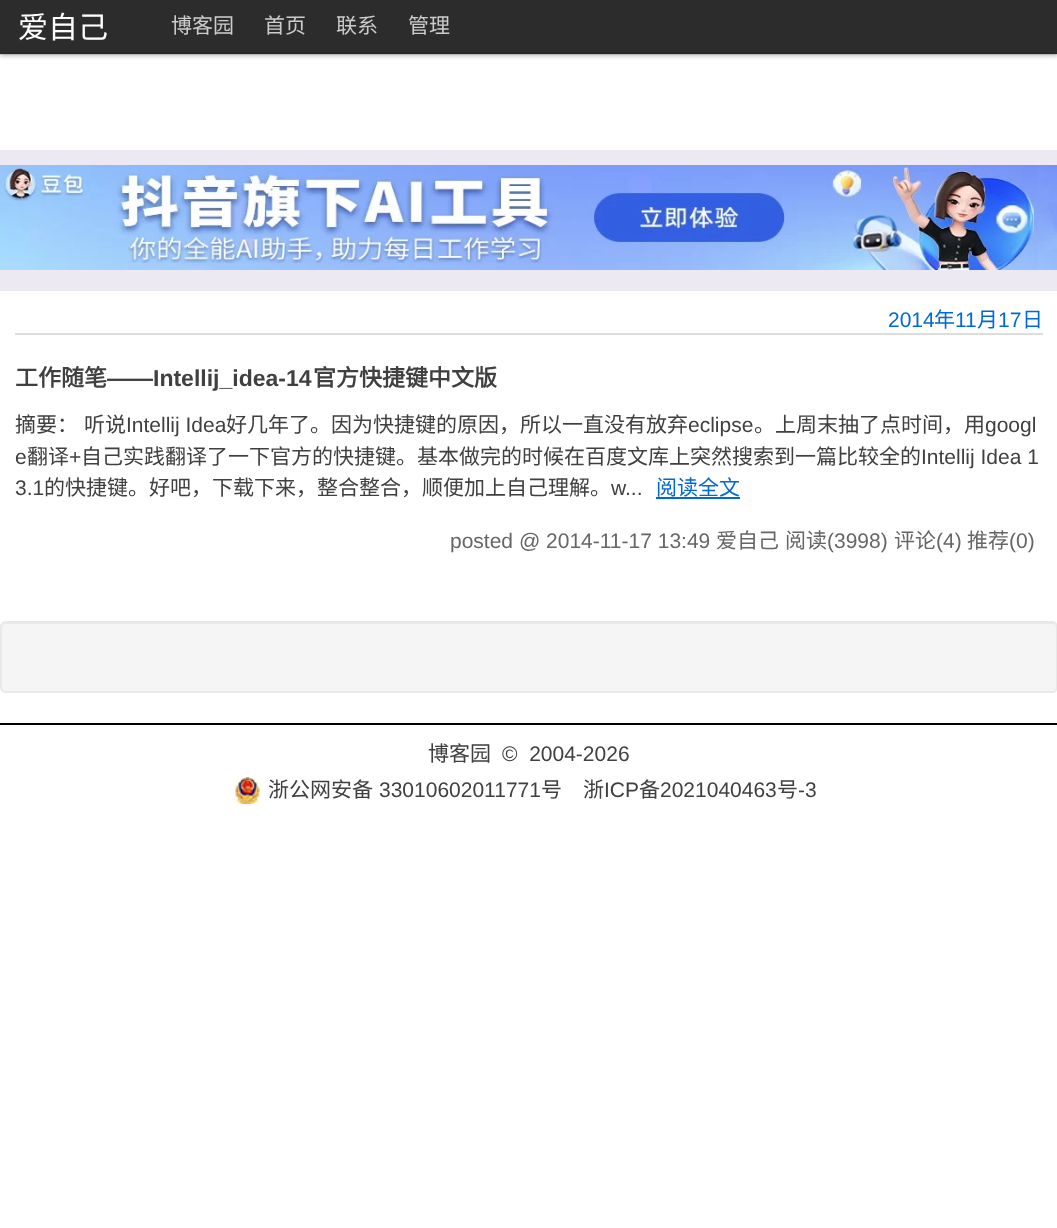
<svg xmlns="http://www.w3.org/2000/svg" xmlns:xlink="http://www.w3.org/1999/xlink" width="1057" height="1228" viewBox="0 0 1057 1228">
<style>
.cls-1{font:30px Noto Sans CJK SC;fill:#ffffff}
.cls-2{font:21px Noto Sans CJK SC;fill:#cccccc}
.cls-3{font:21px Liberation Sans;fill:#0069d6}
.cls-4{font:21px Noto Sans CJK SC;fill:#0069d6}
.cls-5{font:bold 23px Noto Sans CJK SC;fill:#404040}
.cls-6{font:bold 23px Liberation Sans;fill:#404040}
.cls-7{font:21px Noto Sans CJK SC;fill:#404040}
.cls-8{font:21px Liberation Sans;fill:#404040}
.cls-9{font:21px Liberation Sans;fill:#666666}
.cls-10{font:21px Noto Sans CJK SC;fill:#666666}
</style>
<rect width="100%" height="100%" fill="#ffffff"/>
<rect fill="#000000" fill-opacity="0.25" filter="blur(2px)" x="0" y="2" width="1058" height="54"/>
<rect fill="#2c2c2c" x="0" y="0" width="1057" height="54"/>
<rect fill="#000000" fill-opacity="0.1" x="0" y="53" width="1057" height="2"/>
<rect fill="#dddddd" x="15" y="333" width="1028" height="2"/>
<rect fill="#0069d6" x="656" y="497" width="84" height="2"/>
<rect fill="#f5f5f5" x="0" y="621" width="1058" height="72" rx="6"/>
<path fill="#e9e9e9" d="M6 624H1052C1054 624 1056 626 1056 628C1056 625 1054 623 1051 623H7C4 623 2 625 2 628C2 626 4 624 6 624Z"/>
<rect fill="none" stroke="#e9e9e9" stroke-width="2" x="1" y="622" width="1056" height="70" rx="5"/>
<rect fill="#000000" x="0" y="723" width="1057" height="2"/>
<image xlink:href="image0.png" x="235" y="777" width="25" height="27"/>
<rect fill="#ede9f2" x="0" y="150" width="1057" height="141"/>
<image xlink:href="image1.png" x="0" y="165" width="1057" height="105"/>
<text class="cls-1" x="18" y="38">爱自己</text>
<text class="cls-2" x="171" y="33">博客园</text>
<text class="cls-2" x="264" y="33">首页</text>
<text class="cls-2" x="336" y="33">联系</text>
<text class="cls-2" x="408" y="33">管理</text>
<text class="cls-3" x="888" y="327">2014</text>
<text class="cls-4" x="934" y="327">年</text>
<text class="cls-3" x="955" y="327">11</text>
<text class="cls-4" x="977" y="327">月</text>
<text class="cls-3" x="998" y="327">17</text>
<text class="cls-4" x="1022" y="327">日</text>
<text class="cls-5" x="15" y="386">工作随笔</text>
<text class="cls-6" x="107" y="386">——Intellij_idea-14</text>
<text class="cls-5" x="313" y="386">官方快捷键中文版</text>
<text class="cls-7" x="15" y="432">摘要：</text>
<text class="cls-7" x="84" y="432">听说</text>
<text class="cls-8" x="126" y="432">Intellij Idea</text>
<text class="cls-7" x="226" y="432">好几年了。因为快捷键的原因，所以一直没有放弃</text>
<text class="cls-8" x="688" y="432">eclipse</text>
<text class="cls-7" x="754" y="432">。上周末抽了点时间，用</text>
<text class="cls-8" x="985" y="432">googl</text>
<text class="cls-8" x="15" y="464">e</text>
<text class="cls-7" x="27" y="464">翻译</text>
<text class="cls-8" x="69" y="464">+</text>
<text class="cls-7" x="81" y="464">自己实践翻译了一下官方的快捷键。基本做完的时候在百度文库上突然搜索到一篇比较全的</text>
<text class="cls-8" x="921" y="464">Intellij Idea 1</text>
<text class="cls-8" x="15" y="495">3.1</text>
<text class="cls-7" x="44" y="495">的快捷键。好吧，下载下来，整合整合，顺便加上自己理解。</text>
<text class="cls-8" x="611" y="495">w...</text>
<text class="cls-4" x="656" y="495">阅读全文</text>
<text class="cls-9" x="450" y="548">posted @ 2014-11-17 13:49</text>
<text class="cls-10" x="716" y="548">爱自己</text>
<text class="cls-10" x="785" y="548">阅读</text>
<text class="cls-9" x="827" y="548">(3998)</text>
<text class="cls-10" x="894" y="548">评论</text>
<text class="cls-9" x="936" y="548">(4)</text>
<text class="cls-10" x="967" y="548">推荐</text>
<text class="cls-9" x="1009" y="548">(0)</text>
<text class="cls-7" x="428" y="761">博客园</text>
<text class="cls-8" xml:space="preserve" x="502" y="761">©  2004-2026</text>
<text class="cls-7" x="268" y="797">浙公网安备</text>
<text class="cls-8" x="379" y="797">33010602011771</text>
<text class="cls-7" x="541" y="797">号</text>
<text class="cls-7" x="583" y="797">浙</text>
<text class="cls-8" x="604" y="797">ICP</text>
<text class="cls-7" x="639" y="797">备</text>
<text class="cls-8" x="660" y="797">2021040463</text>
<text class="cls-7" x="777" y="797">号</text>
<text class="cls-8" x="798" y="797">-3</text>
</svg>
